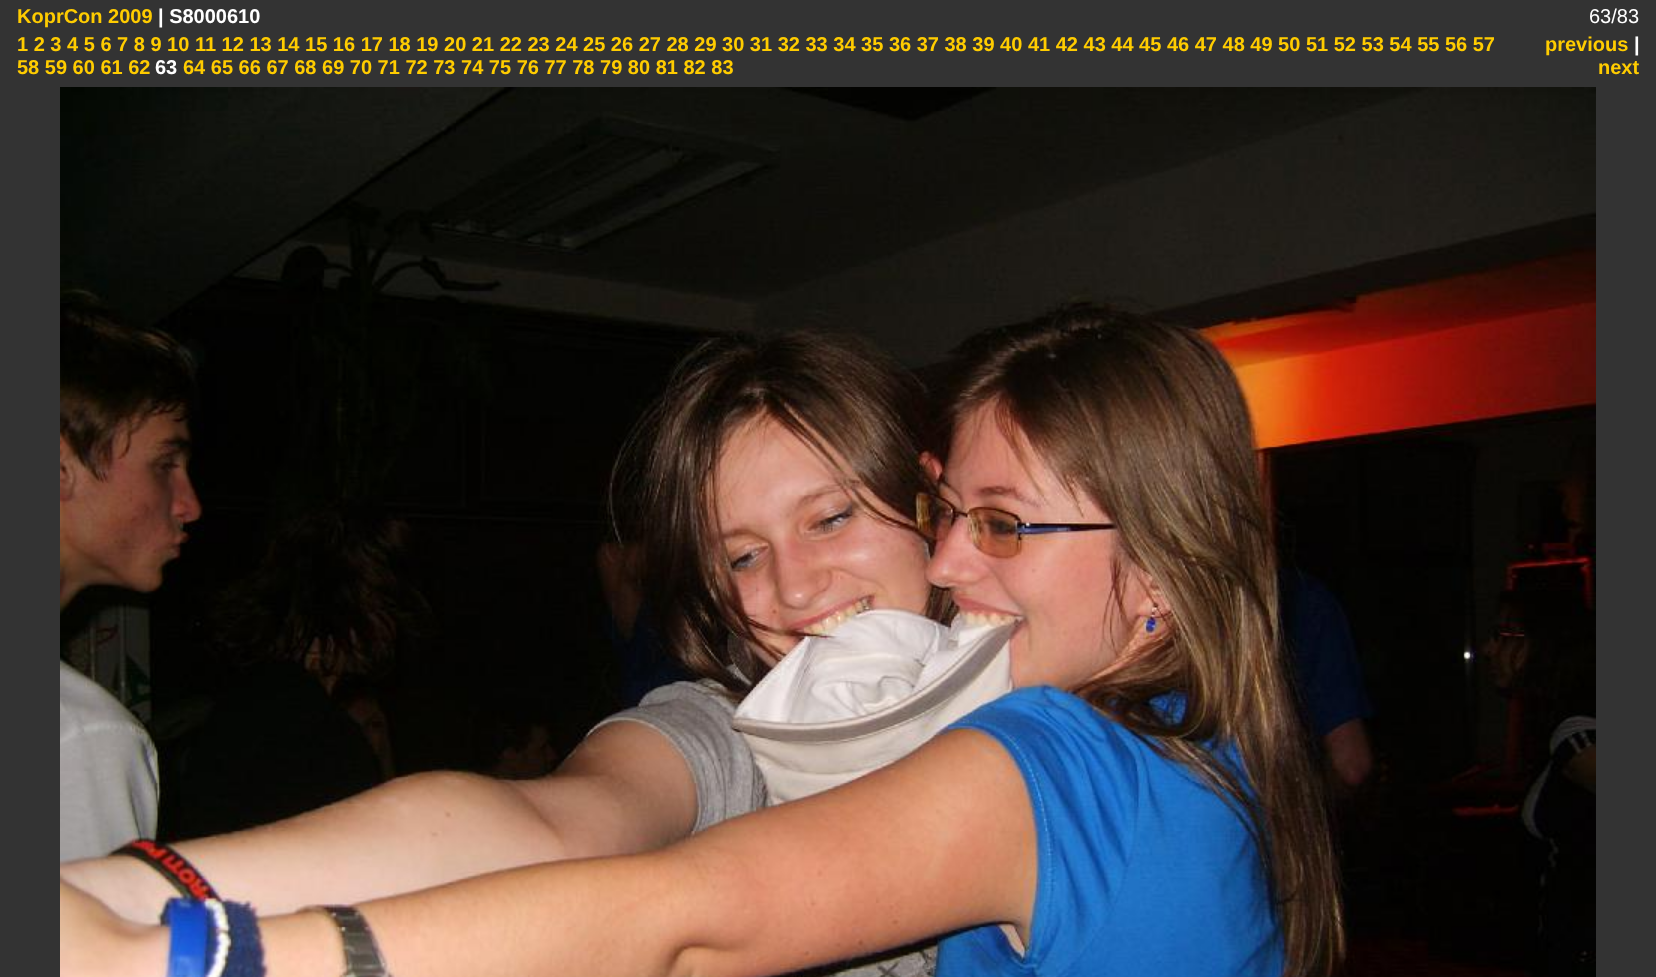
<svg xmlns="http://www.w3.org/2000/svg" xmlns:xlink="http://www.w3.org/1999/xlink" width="1656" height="977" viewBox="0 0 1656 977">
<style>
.cls-1{font:bold 20px Liberation Sans;fill:#ffcc00}
.cls-2{font:bold 20px Liberation Sans;fill:#ffffff}
.cls-3{font:20px Liberation Sans;fill:#ffffff}
</style>
<rect width="100%" height="100%" fill="#333333"/>
<image xlink:href="image0.png" x="60" y="87" width="1536" height="890"/>
<text class="cls-1" x="17" y="23">KoprCon 2009</text>
<text class="cls-2" x="158" y="23">| S8000610</text>
<text class="cls-3" x="1589" y="23">63/83</text>
<text class="cls-1"><tspan x="17" y="51">1 2 3 4 5 6 7 8 9 10 11 12 13 14 15 16 17 18 19 20 21 22 23 24 25 26 27 28 29 30 31 32 33 34 35 36 37 38 39 40 41 42 43 44 45 46 47 48 49 50 51 52 53 54 55 56 57</tspan><tspan x="17" y="74">58 59 60 61 62</tspan></text>
<text class="cls-2" x="155" y="74">63</text>
<text class="cls-1" x="183" y="74">64 65 66 67 68 69 70 71 72 73 74 75 76 77 78 79 80 81 82 83</text>
<text class="cls-1" x="1545" y="51">previous</text>
<text class="cls-2" x="1634" y="51">|</text>
<text class="cls-1" x="1598" y="74">next</text>
</svg>
